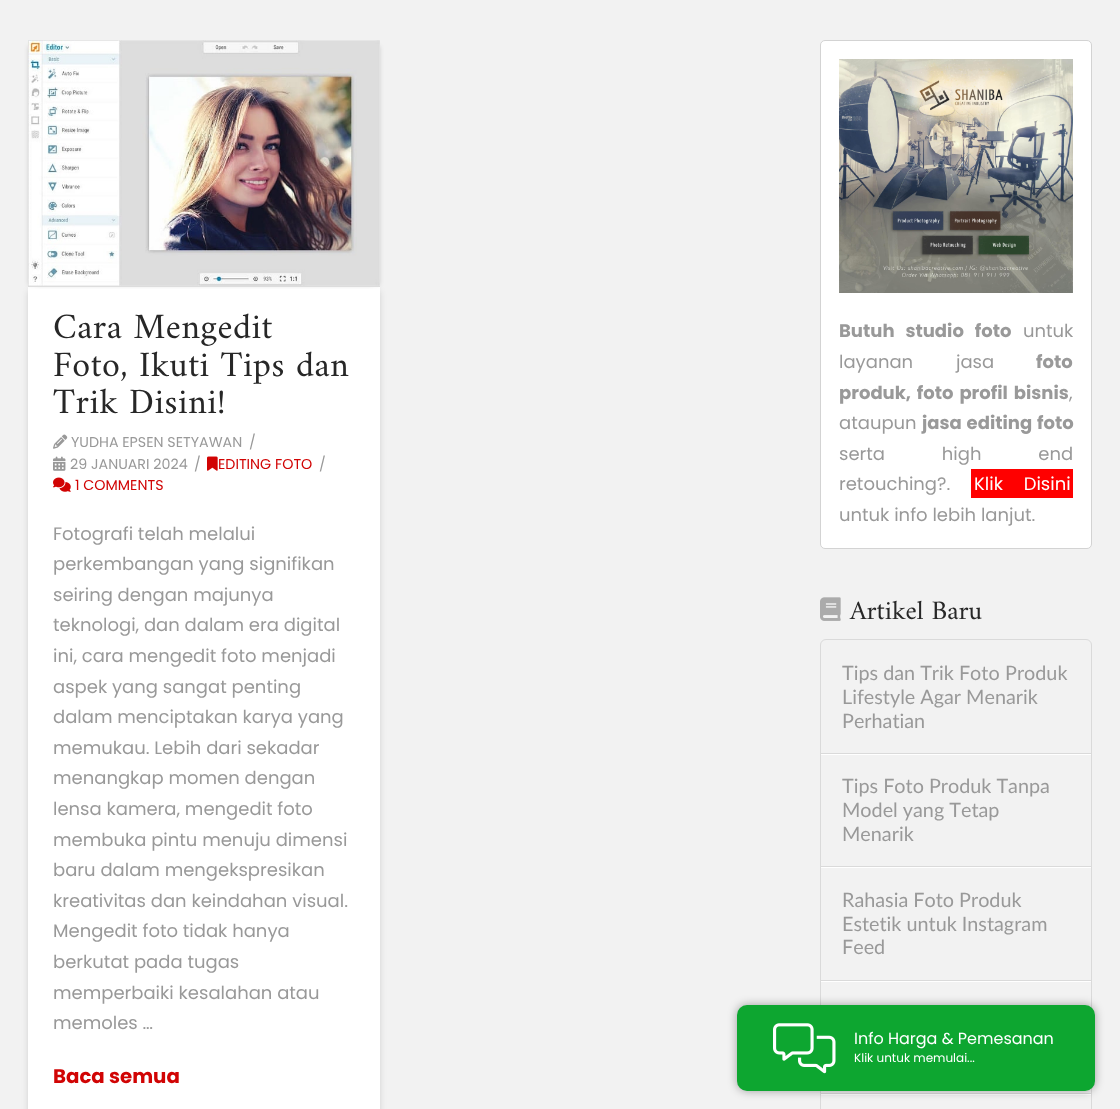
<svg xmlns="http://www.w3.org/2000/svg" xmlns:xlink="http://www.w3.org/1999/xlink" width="1120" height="1109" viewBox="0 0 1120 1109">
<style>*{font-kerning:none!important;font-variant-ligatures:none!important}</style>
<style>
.cls-1{font:36px Amiri;letter-spacing:0.5px;fill:#272727}
.cls-2{font:14.25px Poppins;fill:#999999}
.cls-3{font:14.25px Poppins;fill:#d10404}
.cls-4{font:18px Poppins;fill:#999999}
.cls-5{font:bold 19.75px Poppins;fill:#d10404}
.cls-6{font:bold 18px Poppins;fill:#999999}
.cls-7{font:18px Poppins;fill:#ffffff}
.cls-8{font:27px Amiri;fill:#272727}
.cls-9{font:19.8px Lato;fill:#999999}
.cls-10{font:16px Poppins;fill:#ffffff}
.cls-11{font:12px Poppins;fill:#ffffff}
</style>
<defs>
<clipPath id="clip1"><rect x="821" y="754" width="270" height="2"/></clipPath>
<clipPath id="clip2"><rect x="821" y="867" width="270" height="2"/></clipPath>
<clipPath id="clip3"><rect x="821" y="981" width="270" height="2"/></clipPath>
<clipPath id="clip4"><rect x="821" y="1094" width="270" height="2"/></clipPath>
</defs>
<rect width="100%" height="100%" fill="#f2f2f2"/>
<rect fill="#000000" fill-opacity="0.13" filter="blur(3px)" x="28" y="290" width="352" height="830" rx="4"/>
<rect fill="#ffffff" x="28" y="287" width="352" height="822"/>
<rect fill="#000000" fill-opacity="0.13" filter="blur(2px)" x="28" y="46" width="344" height="239"/>
<rect fill="#000000" fill-opacity="0.13" filter="blur(2px)" x="36" y="46" width="344" height="239"/>
<rect fill="#dddddd" x="28" y="286" width="352" height="1"/>
<image xlink:href="image0.png" x="28" y="40" width="352" height="246"/>
<image xlink:href="image1.png" x="53" y="434" width="15" height="15"/>
<image xlink:href="image2.png" x="53" y="456" width="13" height="15"/>
<image xlink:href="image3.png" x="207" y="456" width="11" height="15"/>
<image xlink:href="image4.png" x="53" y="477" width="18" height="15"/>
<rect fill="#ffffff" stroke="#d3d3d3" x="820.5" y="40.5" width="271" height="508" rx="4.5"/>
<image xlink:href="image5.png" x="839" y="59" width="234" height="234"/>
<rect fill="#ff0000" x="971" y="469" width="102" height="29"/>
<image xlink:href="image6.png" x="820" y="597" width="21" height="24"/>
<rect fill="none" stroke="#dadada" x="820.5" y="639.5" width="271" height="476" rx="5.5"/>
<g clip-path="url(#clip1)">
<rect fill="#ffffff" fill-opacity="0.95" filter="blur(0.5px)" x="821" y="641" width="270" height="114"/>
</g>
<rect fill="#dadada" x="821" y="753" width="270" height="1"/>
<g clip-path="url(#clip2)">
<rect fill="#ffffff" fill-opacity="0.95" filter="blur(0.5px)" x="821" y="755" width="270" height="113"/>
</g>
<rect fill="#dadada" x="821" y="866" width="270" height="1"/>
<g clip-path="url(#clip3)">
<rect fill="#ffffff" fill-opacity="0.95" filter="blur(0.5px)" x="821" y="868" width="270" height="114"/>
</g>
<rect fill="#dadada" x="821" y="980" width="270" height="1"/>
<g clip-path="url(#clip4)">
<rect fill="#ffffff" fill-opacity="0.95" filter="blur(0.5px)" x="821" y="982" width="270" height="113"/>
</g>
<rect fill="#dadada" x="821" y="1093" width="270" height="1"/>
<rect fill="#000000" fill-opacity="0.35" filter="blur(5px)" x="737" y="1005" width="358" height="86" rx="10"/>
<rect fill="#0da630" x="737" y="1005" width="358" height="86" rx="10"/>
<image xlink:href="image7.png" x="773" y="1023" width="63" height="51"/>
<text class="cls-1"><tspan x="53" y="338">Cara Mengedit</tspan><tspan x="53" y="376">Foto, Ikuti Tips dan</tspan><tspan x="53" y="413">Trik Disini!</tspan></text>
<text class="cls-2" x="71" y="447">YUDHA EPSEN SETYAWAN</text>
<text class="cls-2" x="249" y="447">/</text>
<text class="cls-2" x="70" y="469">29 JANUARI 2024</text>
<text class="cls-2" x="194" y="469">/</text>
<text class="cls-3" x="218" y="469">EDITING FOTO</text>
<text class="cls-2" x="319" y="469">/</text>
<text class="cls-3" x="75" y="490">1 COMMENTS</text>
<text class="cls-4"><tspan x="53" y="540">Fotografi telah melalui</tspan><tspan x="53" y="570">perkembangan yang signifikan</tspan><tspan x="53" y="601">seiring dengan majunya</tspan><tspan x="53" y="631">teknologi, dan dalam era digital</tspan><tspan x="53" y="662">ini, cara mengedit foto menjadi</tspan><tspan x="53" y="693">aspek yang sangat penting</tspan><tspan x="53" y="723">dalam menciptakan karya yang</tspan><tspan x="53" y="754">memukau. Lebih dari sekadar</tspan><tspan x="53" y="784">menangkap momen dengan</tspan><tspan x="53" y="815">lensa kamera, mengedit foto</tspan><tspan x="53" y="846">membuka pintu menuju dimensi</tspan><tspan x="53" y="876">baru dalam mengekspresikan</tspan><tspan x="53" y="907">kreativitas dan keindahan visual.</tspan><tspan x="53" y="937">Mengedit foto tidak hanya</tspan><tspan x="53" y="968">berkutat pada tugas</tspan><tspan x="53" y="999">memperbaiki kesalahan atau</tspan><tspan x="53" y="1029">memoles …</tspan></text>
<text class="cls-5" x="53" y="1083">Baca semua</text>
<text class="cls-6" x="839" y="337" word-spacing="7">Butuh studio foto</text>
<text class="cls-4" x="1023" y="337">untuk</text>
<text class="cls-4" x="839" y="368" word-spacing="38">layanan jasa</text>
<text class="cls-6" x="1036" y="368">foto</text>
<text class="cls-6" x="839" y="399" word-spacing="2">produk, foto profil bisnis</text>
<text class="cls-4" x="1069" y="399">,</text>
<text class="cls-4" x="839" y="429">ataupun</text>
<text class="cls-6" x="922" y="429" word-spacing="1">jasa editing foto</text>
<text class="cls-4"><tspan x="839" y="460" word-spacing="52">serta high end</tspan><tspan x="839" y="490">retouching?.</tspan></text>
<text class="cls-7" x="974" y="490" word-spacing="16">Klik Disini</text>
<text class="cls-4" x="839" y="521">untuk info lebih lanjut.</text>
<text class="cls-8" x="850" y="619">Artikel Baru</text>
<text class="cls-9" x="842" y="680">Tips dan Trik Foto</text>
<text class="cls-9" x="1005" y="680">Produk</text>
<text class="cls-9"><tspan x="842" y="704">Lifestyle Agar Menarik</tspan><tspan x="842" y="728">Perhatian</tspan></text>
<text class="cls-9"><tspan x="842" y="793">Tips Foto Produk Tanpa</tspan><tspan x="842" y="817">Model yang Tetap</tspan><tspan x="842" y="841">Menarik</tspan></text>
<text class="cls-9"><tspan x="842" y="907">Rahasia Foto Produk</tspan><tspan x="842" y="931">Estetik untuk Instagram</tspan><tspan x="842" y="954">Feed</tspan></text>
<text class="cls-10" x="854" y="1044">Info Harga &amp; Pemesanan</text>
<text class="cls-11" x="854" y="1062">Klik untuk memulai...</text>
</svg>
